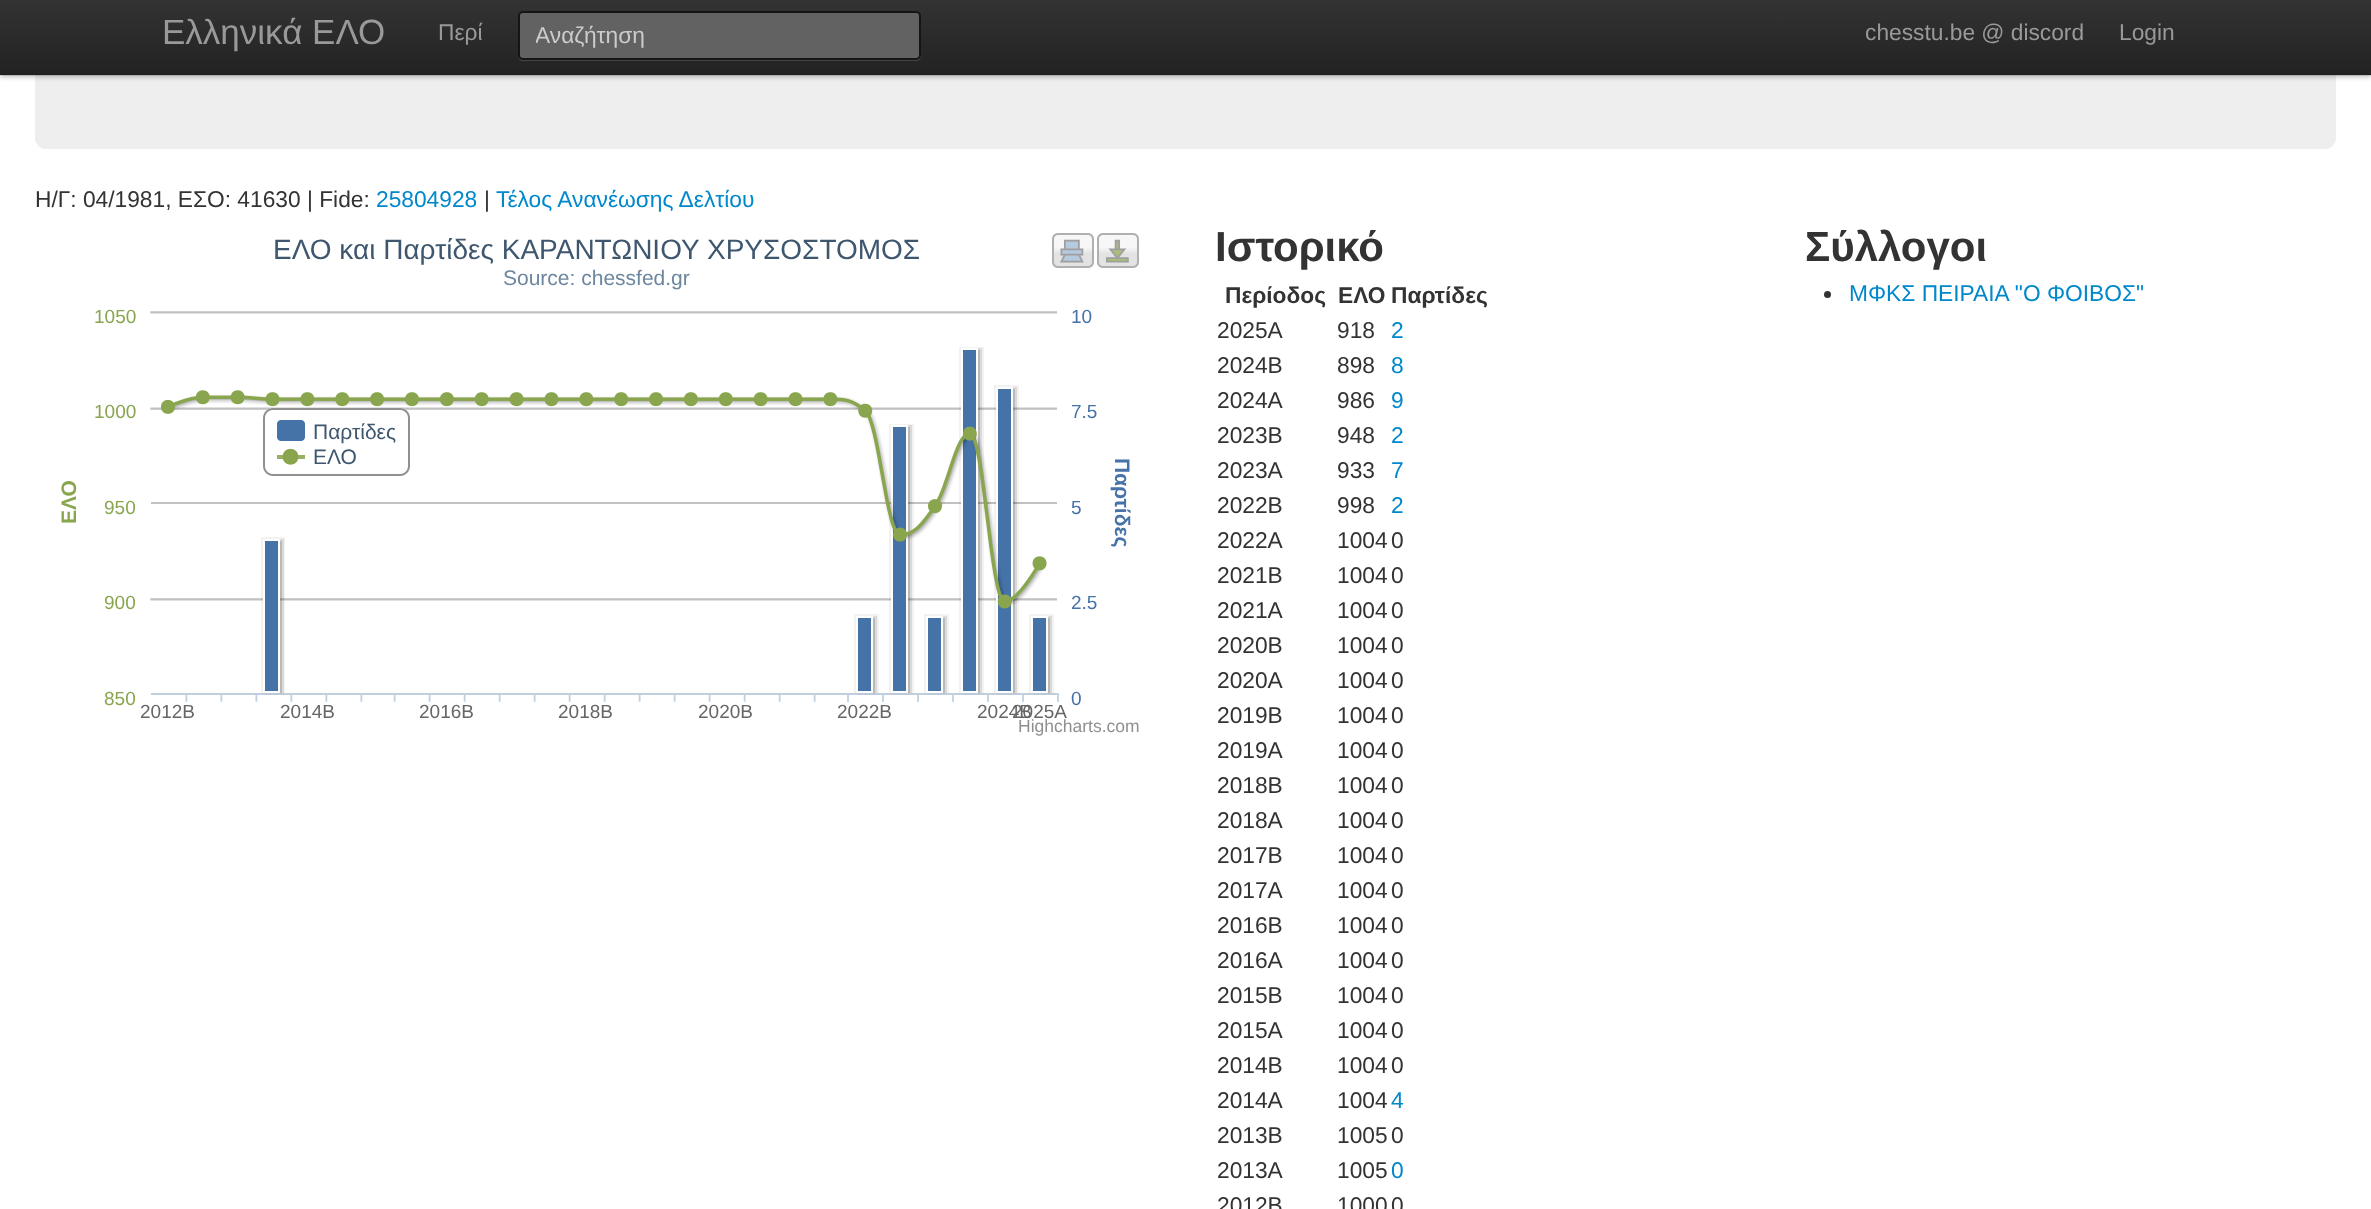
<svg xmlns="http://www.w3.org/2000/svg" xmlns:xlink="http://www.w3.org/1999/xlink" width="2371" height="1209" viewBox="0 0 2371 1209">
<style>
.cls-1{font:35px Liberation Sans;fill:#999999}
.cls-2{font:22.75px Liberation Sans;fill:#999999}
.cls-3{font:22.75px Liberation Sans;fill:#cccccc}
.cls-4{font:22.75px Liberation Sans;fill:#333333}
.cls-5{font:22.75px Liberation Sans;fill:#0088cc}
.cls-6{font:28px Liberation Sans;fill:#3e576f}
.cls-7{font:21px Liberation Sans;fill:#6d869f}
.cls-8{font:19px Liberation Sans;fill:#89a54e}
.cls-9{font:19px Liberation Sans;fill:#4572a7}
.cls-10{font:21px Liberation Sans;fill:#3e576f}
.cls-11{font:bold 21px Liberation Sans;fill:#89a54e}
.cls-12{font:bold 21px Liberation Sans;fill:#4572a7}
.cls-13{font:19px Liberation Sans;fill:#666666}
.cls-14{font:17.5px Liberation Sans;fill:#909090}
.cls-15{font:bold 42px Liberation Sans;fill:#333333}
.cls-16{font:bold 22.75px Liberation Sans;fill:#333333}
</style>
<defs>
<linearGradient id="g1" gradientUnits="userSpaceOnUse" x1="1186" y1="0" x2="1186" y2="75"><stop offset="0" stop-color="#333333"/><stop offset="1" stop-color="#222222"/></linearGradient>
<clipPath id="clip1"><rect x="536" y="23" width="367" height="26"/></clipPath>
</defs>
<rect width="100%" height="100%" fill="#ffffff"/>
<rect fill="#eeeeee" x="35" y="-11" width="2301" height="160" rx="11"/>
<rect fill="#000000" fill-opacity="0.25" filter="blur(2.5px)" x="0" y="2" width="2371" height="75"/>
<rect fill="url(#g1)" x="0" y="0" width="2371" height="75"/>
<rect fill="#000000" fill-opacity="0.1" x="0" y="74" width="2371" height="2"/>
<path fill="#ffffff" fill-opacity="0.15" d="M518 54V56C518 59 520 61 523 61H916C919 61 921 59 921 56V17L920 15V54C920 57 918 60 915 60H523C520 60 518 57 518 54Z"/>
<rect fill="#626262" stroke="#151515" stroke-width="2" x="519" y="12" width="401" height="47" rx="4"/>
<image xlink:href="image0.png" x="150" y="233" width="989" height="469"/>
<circle fill="#333333" cx="1827.5" cy="294.5" r="3.5"/>
<text class="cls-1" x="162" y="44">Ελληνικά ΕΛΟ</text>
<text class="cls-2" x="438" y="40">Περί</text>
<g clip-path="url(#clip1)">
<text class="cls-3" x="535" y="43">Αναζήτηση</text>
</g>
<text class="cls-2" x="1865" y="40">chesstu.be @ discord</text>
<text class="cls-2" x="2119" y="40">Login</text>
<text class="cls-4" x="35" y="207">Η/Γ: 04/1981, ΕΣΟ: 41630 | Fide:</text>
<text class="cls-5" x="376" y="207">25804928</text>
<text class="cls-4" x="484" y="207">|</text>
<text class="cls-5" x="496" y="207">Τέλος Ανανέωσης Δελτίου</text>
<text class="cls-6" x="273" y="259">ΕΛΟ και Παρτίδες ΚΑΡΑΝΤΩΝΙΟΥ ΧΡΥΣΟΣΤΟΜΟΣ</text>
<text class="cls-7" x="503" y="285">Source: chessfed.gr</text>
<text class="cls-8" x="94" y="323">1050</text>
<text class="cls-9" x="1071" y="323">10</text>
<text class="cls-8" x="94" y="418">1000</text>
<text class="cls-9" x="1071" y="418">7.5</text>
<text class="cls-10"><tspan x="313" y="439">Παρτίδες</tspan><tspan x="313" y="464">ΕΛΟ</tspan></text>
<text class="cls-11" x="76" y="524" transform="rotate(-90 76 524)">ΕΛΟ</text>
<text class="cls-8" x="104" y="514">950</text>
<text class="cls-9" x="1071" y="514">5</text>
<text class="cls-12" x="1115" y="458" transform="rotate(90 1115 458)">Παρτίδες</text>
<text class="cls-8" x="104" y="609">900</text>
<text class="cls-9" x="1071" y="609">2.5</text>
<text class="cls-8" x="104" y="705">850</text>
<text class="cls-9" x="1071" y="705">0</text>
<text class="cls-13" x="140" y="718">2012B</text>
<text class="cls-13" x="280" y="718">2014B</text>
<text class="cls-13" x="419" y="718">2016B</text>
<text class="cls-13" x="558" y="718">2018B</text>
<text class="cls-13" x="698" y="718">2020B</text>
<text class="cls-13" x="837" y="718">2022B</text>
<text class="cls-13" x="977" y="718">2024B</text>
<text class="cls-13" x="1012" y="718">2025A</text>
<text class="cls-14" x="1018" y="732">Highcharts.com</text>
<text class="cls-15" x="1215" y="261">Ιστορικό</text>
<text class="cls-16" x="1225" y="303">Περίοδος</text>
<text class="cls-16" x="1338" y="303">ΕΛΟ</text>
<text class="cls-16" x="1391" y="303">Παρτίδες</text>
<text class="cls-4" x="1217" y="338">2025A</text>
<text class="cls-4" x="1337" y="338">918</text>
<text class="cls-5" x="1391" y="338">2</text>
<text class="cls-4" x="1217" y="373">2024B</text>
<text class="cls-4" x="1337" y="373">898</text>
<text class="cls-5" x="1391" y="373">8</text>
<text class="cls-4" x="1217" y="408">2024A</text>
<text class="cls-4" x="1337" y="408">986</text>
<text class="cls-5" x="1391" y="408">9</text>
<text class="cls-4" x="1217" y="443">2023B</text>
<text class="cls-4" x="1337" y="443">948</text>
<text class="cls-5" x="1391" y="443">2</text>
<text class="cls-4" x="1217" y="478">2023Α</text>
<text class="cls-4" x="1337" y="478">933</text>
<text class="cls-5" x="1391" y="478">7</text>
<text class="cls-4" x="1217" y="513">2022B</text>
<text class="cls-4" x="1337" y="513">998</text>
<text class="cls-5" x="1391" y="513">2</text>
<text class="cls-4" x="1217" y="548">2022A</text>
<text class="cls-4" x="1337" y="548">1004</text>
<text class="cls-4" x="1391" y="548">0</text>
<text class="cls-4" x="1217" y="583">2021B</text>
<text class="cls-4" x="1337" y="583">1004</text>
<text class="cls-4" x="1391" y="583">0</text>
<text class="cls-4" x="1217" y="618">2021A</text>
<text class="cls-4" x="1337" y="618">1004</text>
<text class="cls-4" x="1391" y="618">0</text>
<text class="cls-4" x="1217" y="653">2020B</text>
<text class="cls-4" x="1337" y="653">1004</text>
<text class="cls-4" x="1391" y="653">0</text>
<text class="cls-4" x="1217" y="688">2020A</text>
<text class="cls-4" x="1337" y="688">1004</text>
<text class="cls-4" x="1391" y="688">0</text>
<text class="cls-4" x="1217" y="723">2019B</text>
<text class="cls-4" x="1337" y="723">1004</text>
<text class="cls-4" x="1391" y="723">0</text>
<text class="cls-4" x="1217" y="758">2019A</text>
<text class="cls-4" x="1337" y="758">1004</text>
<text class="cls-4" x="1391" y="758">0</text>
<text class="cls-4" x="1217" y="793">2018B</text>
<text class="cls-4" x="1337" y="793">1004</text>
<text class="cls-4" x="1391" y="793">0</text>
<text class="cls-4" x="1217" y="828">2018A</text>
<text class="cls-4" x="1337" y="828">1004</text>
<text class="cls-4" x="1391" y="828">0</text>
<text class="cls-4" x="1217" y="863">2017B</text>
<text class="cls-4" x="1337" y="863">1004</text>
<text class="cls-4" x="1391" y="863">0</text>
<text class="cls-4" x="1217" y="898">2017A</text>
<text class="cls-4" x="1337" y="898">1004</text>
<text class="cls-4" x="1391" y="898">0</text>
<text class="cls-4" x="1217" y="933">2016B</text>
<text class="cls-4" x="1337" y="933">1004</text>
<text class="cls-4" x="1391" y="933">0</text>
<text class="cls-4" x="1217" y="968">2016A</text>
<text class="cls-4" x="1337" y="968">1004</text>
<text class="cls-4" x="1391" y="968">0</text>
<text class="cls-4" x="1217" y="1003">2015B</text>
<text class="cls-4" x="1337" y="1003">1004</text>
<text class="cls-4" x="1391" y="1003">0</text>
<text class="cls-4" x="1217" y="1038">2015A</text>
<text class="cls-4" x="1337" y="1038">1004</text>
<text class="cls-4" x="1391" y="1038">0</text>
<text class="cls-4" x="1217" y="1073">2014B</text>
<text class="cls-4" x="1337" y="1073">1004</text>
<text class="cls-4" x="1391" y="1073">0</text>
<text class="cls-4" x="1217" y="1108">2014A</text>
<text class="cls-4" x="1337" y="1108">1004</text>
<text class="cls-5" x="1391" y="1108">4</text>
<text class="cls-4" x="1217" y="1143">2013B</text>
<text class="cls-4" x="1337" y="1143">1005</text>
<text class="cls-4" x="1391" y="1143">0</text>
<text class="cls-4" x="1217" y="1178">2013A</text>
<text class="cls-4" x="1337" y="1178">1005</text>
<text class="cls-5" x="1391" y="1178">0</text>
<text class="cls-4" x="1217" y="1213">2012B</text>
<text class="cls-4" x="1337" y="1213">1000</text>
<text class="cls-4" x="1391" y="1213">0</text>
<text class="cls-15" x="1805" y="261">Σύλλογοι</text>
<text class="cls-5" x="1849" y="301">ΜΦΚΣ ΠΕΙΡΑΙΑ "Ο ΦΟΙΒΟΣ"</text>
</svg>
